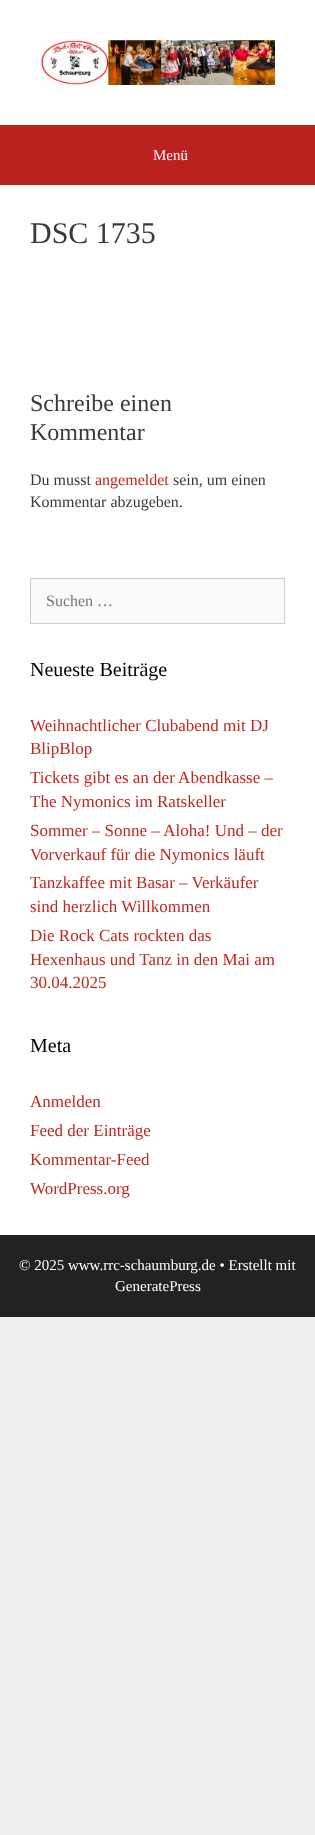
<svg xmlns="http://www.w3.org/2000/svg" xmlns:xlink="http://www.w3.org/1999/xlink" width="315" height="1835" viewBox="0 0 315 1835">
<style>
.cls-1{font:15px Liberation Serif;fill:#ffffff}
.cls-2{font:30px Liberation Serif;fill:#3a3a3a}
.cls-3{font:24px Liberation Serif;fill:#3a3a3a}
.cls-4{font:16px Liberation Serif;fill:#3a3a3a}
.cls-5{font:16px Liberation Serif;fill:#bf271f}
.cls-6{font:16px Liberation Serif;fill:#757575}
.cls-7{font:20px Liberation Serif;fill:#000000}
.cls-8{font:17px Liberation Serif;fill:#bf271f}
</style>
<rect width="100%" height="100%" fill="#efefef"/>
<rect fill="#ffffff" x="0" y="0" width="315" height="125"/>
<image xlink:href="image0.png" x="40" y="40" width="235" height="45"/>
<rect fill="#bc2121" x="0" y="125" width="315" height="60"/>
<rect fill="#ffffff" x="0" y="185" width="315" height="1050"/>
<rect fill="#fafafa" stroke="#cccccc" x="30.5" y="578.5" width="254" height="45"/>
<rect fill="#222222" x="0" y="1235" width="315" height="82"/>
<text class="cls-1" x="153" y="160">Menü</text>
<text class="cls-2" x="30" y="243">DSC 1735</text>
<text class="cls-3"><tspan x="30" y="411">Schreibe einen</tspan><tspan x="30" y="440">Kommentar</tspan></text>
<text class="cls-4" x="30" y="485">Du musst</text>
<text class="cls-5" x="95" y="485">angemeldet</text>
<text class="cls-4" x="173" y="485">sein, um einen</text>
<text class="cls-4" x="30" y="507">Kommentar abzugeben.</text>
<text class="cls-6" x="46" y="606">Suchen …</text>
<text class="cls-7" x="30" y="676">Neueste Beiträge</text>
<text class="cls-8"><tspan x="30" y="731">Weihnachtlicher Clubabend mit DJ</tspan><tspan x="30" y="754">BlipBlop</tspan><tspan x="30" y="783">Tickets gibt es an der Abendkasse –</tspan><tspan x="30" y="807">The Nymonics im Ratskeller</tspan><tspan x="30" y="836">Sommer – Sonne – Aloha! Und – der</tspan><tspan x="30" y="860">Vorverkauf für die Nymonics läuft</tspan><tspan x="30" y="888">Tanzkaffee mit Basar – Verkäufer</tspan><tspan x="30" y="912">sind herzlich Willkommen</tspan><tspan x="30" y="941">Die Rock Cats rockten das</tspan><tspan x="30" y="965">Hexenhaus und Tanz in den Mai am</tspan><tspan x="30" y="988">30.04.2025</tspan></text>
<text class="cls-7" x="30" y="1052">Meta</text>
<text class="cls-8"><tspan x="30" y="1107">Anmelden</tspan><tspan x="30" y="1136">Feed der Einträge</tspan><tspan x="30" y="1165">Kommentar-Feed</tspan><tspan x="30" y="1194">WordPress.org</tspan></text>
<text class="cls-1" x="19" y="1270">© 2025 www.rrc-schaumburg.de • Erstellt mit</text>
<text class="cls-1" x="115" y="1291">GeneratePress</text>
</svg>
